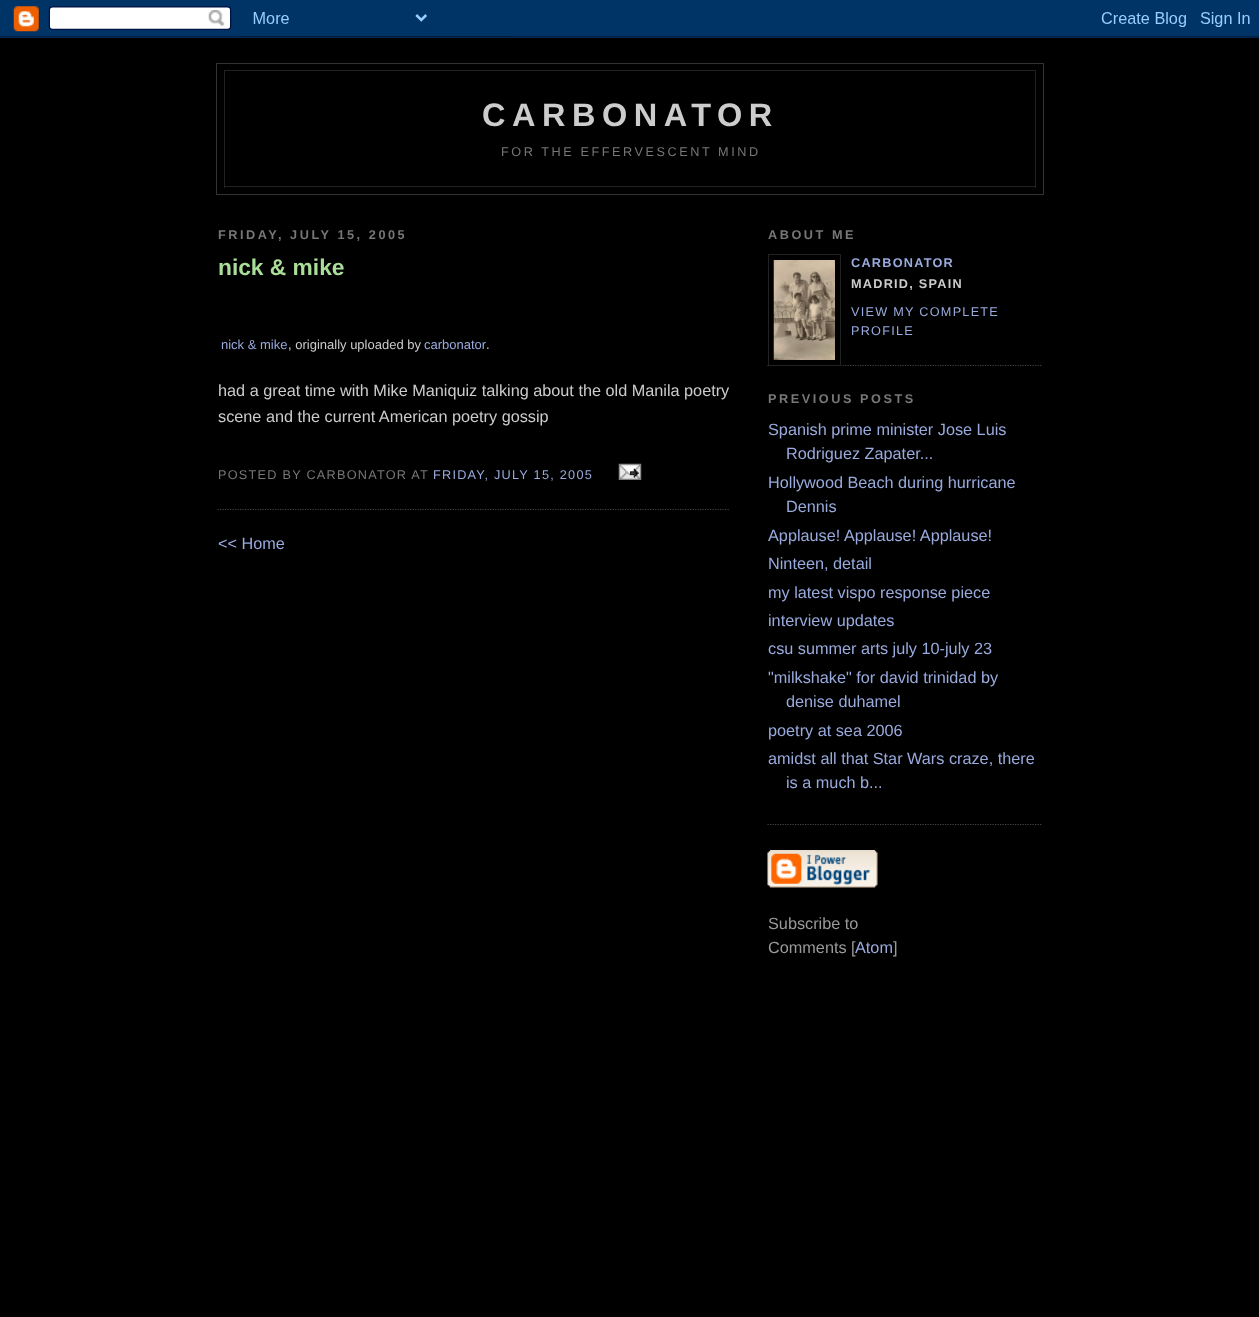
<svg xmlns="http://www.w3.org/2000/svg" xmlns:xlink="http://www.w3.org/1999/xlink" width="1259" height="1317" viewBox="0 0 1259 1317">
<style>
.cls-1{font:bold 32.5px Liberation Sans;letter-spacing:6.5px;fill:#cccccc}
.cls-2{font:12.7px Liberation Sans;letter-spacing:2.55px;fill:#777777}
.cls-3{font:bold 12.7px Liberation Sans;letter-spacing:2.55px;fill:#777777}
.cls-4{font:bold 22.75px Liberation Sans;fill:#aadd99}
.cls-5{font:13px Liberation Sans;fill:#99aadd}
.cls-6{font:13px Liberation Sans;fill:#cccccc}
.cls-7{font:16.25px Liberation Sans;fill:#cccccc}
.cls-8{font:12.7px Liberation Sans;letter-spacing:1.25px;fill:#777777}
.cls-9{font:12.7px Liberation Sans;letter-spacing:1.25px;fill:#99aadd}
.cls-10{font:16.25px Liberation Sans;fill:#99aadd}
.cls-11{font:bold 12.7px Liberation Sans;letter-spacing:1.25px;fill:#99aadd}
.cls-12{font:bold 12.7px Liberation Sans;letter-spacing:1.25px;fill:#cccccc}
.cls-13{font:16.25px Liberation Sans;fill:#999999}
</style>
<rect width="100%" height="100%" fill="#000000"/>
<image xlink:href="image0.png" x="0" y="0" width="1259" height="38"/>
<rect fill="none" stroke="#333333" x="216.5" y="63.5" width="827" height="131"/>
<rect fill="#222222" x="224" y="70" width="812" height="1"/>
<rect fill="#222222" x="1035" y="70" width="1" height="118"/>
<rect fill="#222222" x="224" y="70" width="1" height="74"/>
<rect fill="#222222" x="224" y="186" width="812" height="1"/>
<rect fill="#222222" x="224" y="144" width="1" height="44"/>
<path fill="none" stroke="#444444" stroke-width="1.2" stroke-dasharray="1.25 1.25" d="M217.5 509.5H730"/>
<image xlink:href="image1.png" x="618" y="463" width="24" height="17"/>
<path fill="none" stroke="#444444" stroke-width="1.2" stroke-dasharray="1.25 1.25" d="M767.5 365.5H1042.5"/>
<rect fill="none" stroke="#222222" x="768.5" y="254.5" width="72" height="111"/>
<image xlink:href="image2.png" x="773" y="260" width="62" height="100"/>
<path fill="none" stroke="#444444" stroke-width="1.2" stroke-dasharray="1.25 1.25" d="M767.5 824.5H1042.5"/>
<image xlink:href="image3.png" x="767" y="850" width="111" height="38"/>
<text class="cls-1" x="482" y="126">CARBONATOR</text>
<text class="cls-2" x="501" y="156">FOR THE EFFERVESCENT MIND</text>
<text class="cls-3" x="218" y="239">FRIDAY, JULY 15, 2005</text>
<text class="cls-4" x="218" y="275">nick &amp; mike</text>
<text class="cls-5" x="221" y="349">nick &amp; mike</text>
<text class="cls-6" x="288" y="349">, originally uploaded by</text>
<text class="cls-5" x="424" y="349">carbonator</text>
<text class="cls-6" x="486" y="349">.</text>
<text class="cls-7"><tspan x="218" y="396">had a great time with Mike Maniquiz talking about the old Manila poetry</tspan><tspan x="218" y="422">scene and the current American poetry gossip</tspan></text>
<text class="cls-8" x="218" y="479">POSTED BY CARBONATOR AT</text>
<text class="cls-9" x="433" y="479">FRIDAY, JULY 15, 2005</text>
<text class="cls-10" x="218" y="549">&lt;&lt; Home</text>
<text class="cls-3" x="768" y="239">ABOUT ME</text>
<text class="cls-11" x="851" y="267">CARBONATOR</text>
<text class="cls-12" x="851" y="288">MADRID, SPAIN</text>
<text class="cls-9"><tspan x="851" y="316">VIEW MY COMPLETE</tspan><tspan x="851" y="335">PROFILE</tspan></text>
<text class="cls-3" x="768" y="403">PREVIOUS POSTS</text>
<text class="cls-10" x="768" y="435">Spanish prime minister Jose Luis</text>
<text class="cls-10" x="786" y="459">Rodriguez Zapater...</text>
<text class="cls-10" x="768" y="488">Hollywood Beach during hurricane</text>
<text class="cls-10" x="786" y="512">Dennis</text>
<text class="cls-10"><tspan x="768" y="541">Applause! Applause! Applause!</tspan><tspan x="768" y="569">Ninteen, detail</tspan><tspan x="768" y="598">my latest vispo response piece</tspan><tspan x="768" y="626">interview updates</tspan><tspan x="768" y="654">csu summer arts july 10-july 23</tspan><tspan x="768" y="683">"milkshake" for david trinidad by</tspan></text>
<text class="cls-10" x="786" y="707">denise duhamel</text>
<text class="cls-10"><tspan x="768" y="736">poetry at sea 2006</tspan><tspan x="768" y="764">amidst all that Star Wars craze, there</tspan></text>
<text class="cls-10" x="786" y="788">is a much b...</text>
<text class="cls-13"><tspan x="768" y="929">Subscribe to</tspan><tspan x="768" y="953">Comments [</tspan></text>
<text class="cls-10" x="855" y="953">Atom</text>
<text class="cls-13" x="893" y="953">]</text>
</svg>
